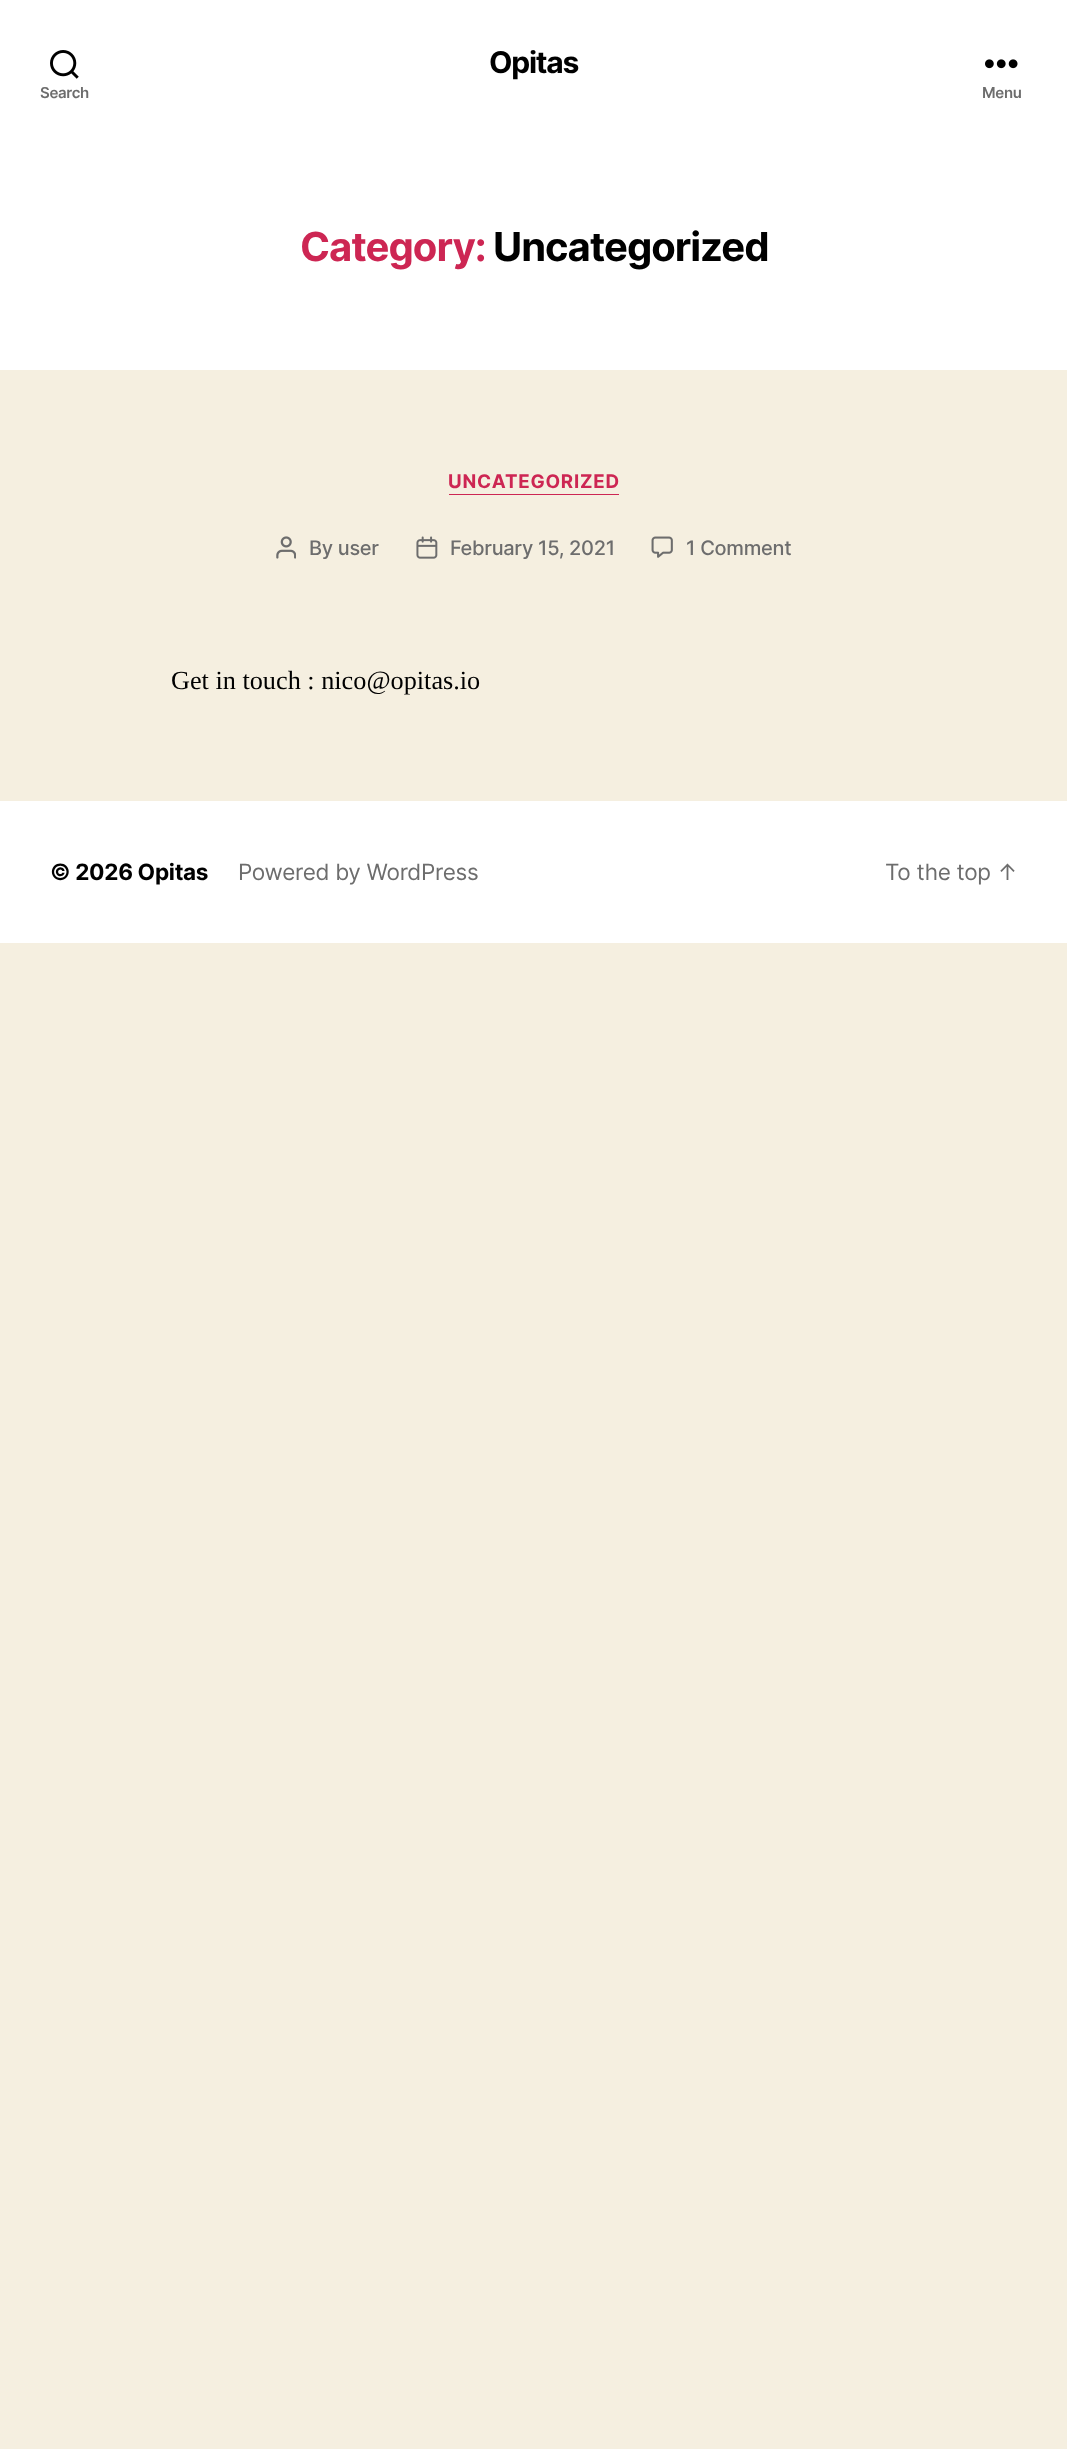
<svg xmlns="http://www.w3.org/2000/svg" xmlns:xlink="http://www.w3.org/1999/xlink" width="1067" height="2449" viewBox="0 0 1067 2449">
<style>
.cls-1{font:bold 30px Inter;letter-spacing:-1.25px;fill:#000000}
.cls-2{font:600 15px Inter;letter-spacing:-0.3px;fill:#6d6d6d}
.cls-3{font:bold 40px Inter;letter-spacing:-1px;fill:#cd2653}
.cls-4{font:bold 40px Inter;letter-spacing:-1px;fill:#000000}
.cls-5{font:bold 18.75px Inter;letter-spacing:0.75px;fill:#cd2653}
.cls-6{font:500 20px Inter;letter-spacing:-0.3px;fill:#6d6d6d}
.cls-7{font:26.25px Liberation Serif;fill:#000000}
.cls-8{font:bold 22.5px Inter;letter-spacing:-0.3px;fill:#000000}
.cls-9{font:22.5px Inter;letter-spacing:-0.3px;fill:#6d6d6d}
</style>
<rect width="100%" height="100%" fill="#f5efe0"/>
<rect fill="#ffffff" x="0" y="0" width="1067" height="370"/>
<image xlink:href="image0.png" x="50" y="50" width="29" height="29"/>
<image xlink:href="image1.png" x="985" y="59" width="33" height="10"/>
<rect fill="#cd2653" x="449" y="494" width="170" height="1"/>
<image xlink:href="image2.png" x="276" y="536" width="20" height="23"/>
<image xlink:href="image3.png" x="416" y="536" width="22" height="23"/>
<image xlink:href="image4.png" x="651" y="536" width="22" height="22"/>
<rect fill="#ffffff" x="0" y="801" width="1067" height="142"/>
<text class="cls-1" x="489" y="73">Opitas</text>
<text class="cls-2" x="40" y="98">Search</text>
<text class="cls-2" x="982" y="98">Menu</text>
<text class="cls-3" x="300" y="261">Category:</text>
<text class="cls-4" x="493" y="261">Uncategorized</text>
<text class="cls-5" x="448" y="488">UNCATEGORIZED</text>
<text class="cls-6" x="309" y="555">By user</text>
<text class="cls-6" x="450" y="555">February 15, 2021</text>
<text class="cls-6" x="686" y="555">1 Comment</text>
<text class="cls-7" x="171" y="689">Get in touch : nico@opitas.io</text>
<text class="cls-8" x="50" y="880">© 2026 Opitas</text>
<text class="cls-9" x="238" y="880">Powered by WordPress</text>
<text class="cls-9" x="885" y="880">To the top ↑</text>
</svg>
